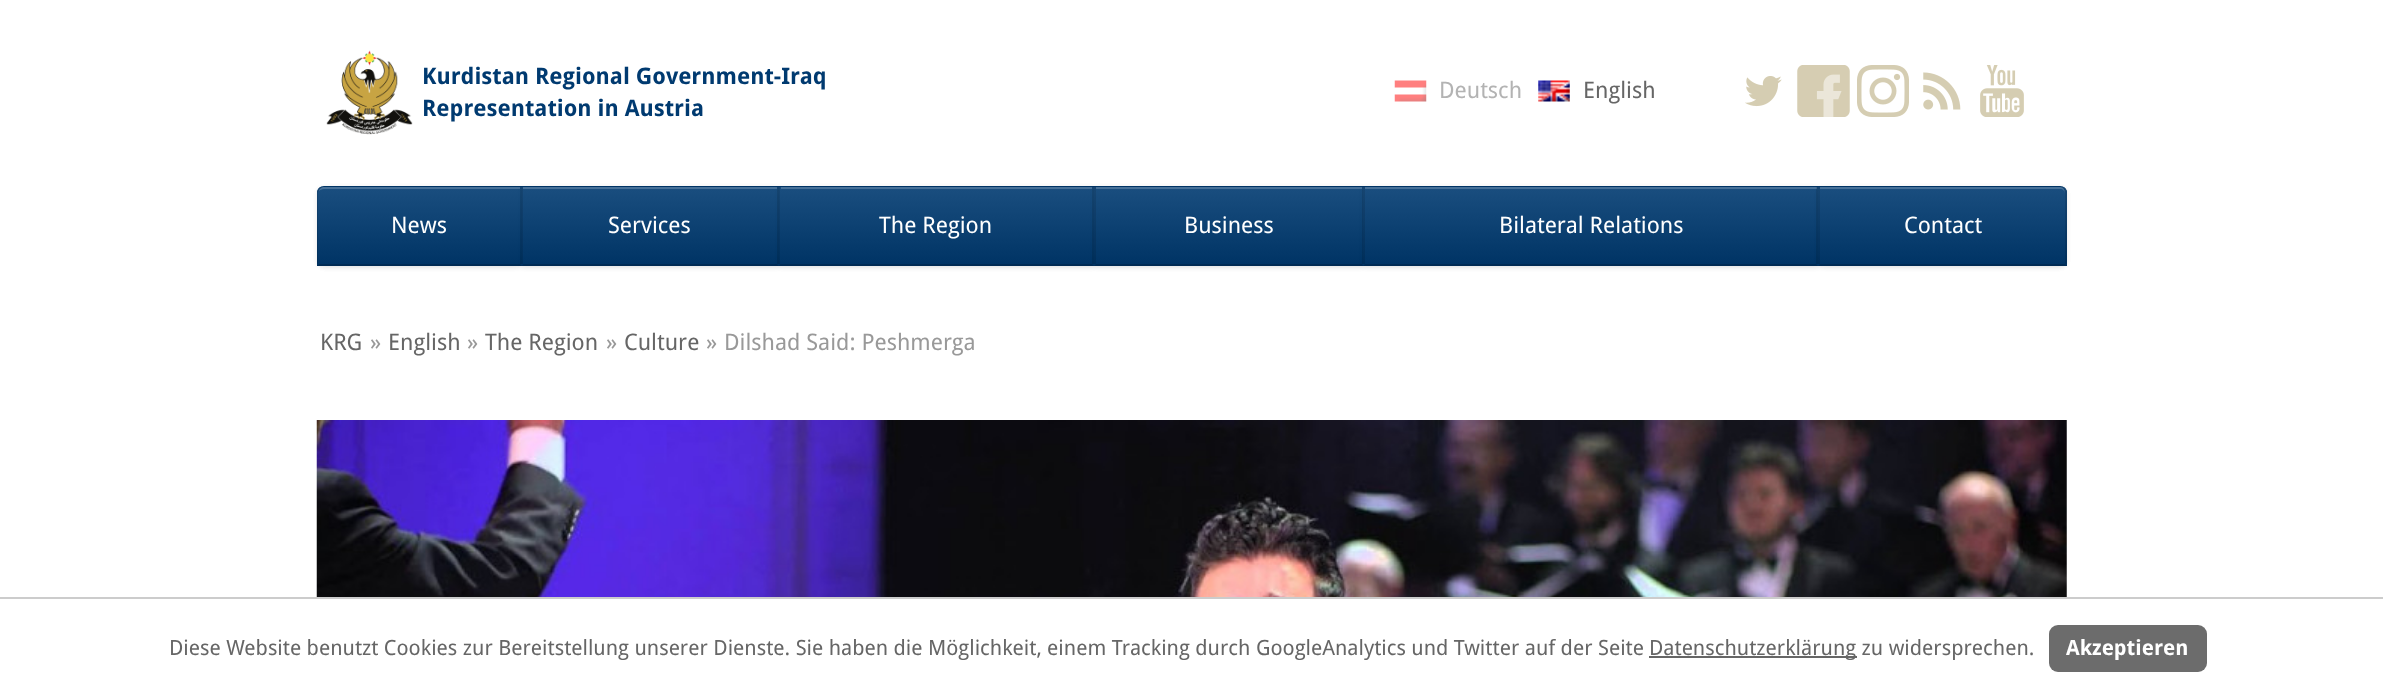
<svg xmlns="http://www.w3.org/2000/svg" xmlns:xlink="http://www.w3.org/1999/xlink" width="2383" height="698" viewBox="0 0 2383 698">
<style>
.cls-1{font:bold 22.75px Droid Sans;fill:#003a70}
.cls-2{font:22.75px Droid Sans;fill:#b3b3b3}
.cls-3{font:22.75px Droid Sans;fill:#666666}
.cls-4{font:22.75px Droid Sans;fill:#ffffff}
.cls-5{font:22.75px Droid Sans;fill:#999999}
.cls-6{font:21px Droid Sans;fill:#666666}
.cls-7{font:bold 21px Droid Sans;fill:#ffffff}
</style>
<defs>
<clipPath id="clip1"><path d="M324 186H522V266H317V193C317 189 320 186 324 186Z"/></clipPath>
<linearGradient id="g1" gradientUnits="userSpaceOnUse" x1="419" y1="187" x2="419" y2="264"><stop offset="0" stop-color="#1a4e7f"/><stop offset="1" stop-color="#003465"/></linearGradient>
<linearGradient id="g2" gradientUnits="userSpaceOnUse" x1="650" y1="187" x2="650" y2="264"><stop offset="0" stop-color="#1a4e7f"/><stop offset="1" stop-color="#003465"/></linearGradient>
<linearGradient id="g3" gradientUnits="userSpaceOnUse" x1="936" y1="187" x2="936" y2="264"><stop offset="0" stop-color="#1a4e7f"/><stop offset="1" stop-color="#003465"/></linearGradient>
<linearGradient id="g4" gradientUnits="userSpaceOnUse" x1="1229" y1="187" x2="1229" y2="264"><stop offset="0" stop-color="#1a4e7f"/><stop offset="1" stop-color="#003465"/></linearGradient>
<linearGradient id="g5" gradientUnits="userSpaceOnUse" x1="1591" y1="187" x2="1591" y2="264"><stop offset="0" stop-color="#1a4e7f"/><stop offset="1" stop-color="#003465"/></linearGradient>
<clipPath id="clip2"><path d="M1818 186H2060C2064 186 2067 189 2067 193V266H1818Z"/></clipPath>
<linearGradient id="g6" gradientUnits="userSpaceOnUse" x1="1943" y1="187" x2="1943" y2="264"><stop offset="0" stop-color="#1a4e7f"/><stop offset="1" stop-color="#003465"/></linearGradient>
</defs>
<rect width="100%" height="100%" fill="#ffffff"/>
<image xlink:href="image0.png" x="326" y="50" width="87" height="85"/>
<image xlink:href="image1.png" x="1394" y="80" width="33" height="22"/>
<image xlink:href="image2.png" x="1538" y="80" width="32" height="22"/>
<image xlink:href="image3.png" x="1745" y="76" width="37" height="31"/>
<image xlink:href="image4.png" x="1797" y="65" width="53" height="52"/>
<image xlink:href="image5.png" x="1857" y="65" width="52" height="52"/>
<image xlink:href="image6.png" x="1923" y="72" width="38" height="38"/>
<image xlink:href="image7.png" x="1980" y="65" width="44" height="52"/>
<rect fill="#000000" fill-opacity="0.05" filter="blur(2px)" x="317" y="187" width="1750" height="81" rx="7"/>
<rect fill="#000000" fill-opacity="0.05" filter="blur(2px)" x="317" y="187" width="205" height="81" rx="7"/>
<path fill="#003a70" d="M324 186H522V266H317V193C317 189 320 186 324 186Z"/>
<g clip-path="url(#clip1)">
<rect fill="url(#g1)" x="317" y="187" width="205" height="77"/>
</g>
<path fill="#477198" d="M324 189H520V187H324C322 187 319 189 319 191C320 190 322 189 324 189Z"/>
<path fill="#000000" fill-opacity="0.1" d="M324 186C322 186 320 187 319 188L320 189L323 187H520L521 186Z"/>
<path fill="#000000" fill-opacity="0.1" d="M522 186V266L520 264V187Z"/>
<path fill="#000000" fill-opacity="0.25" d="M522 266L520 264H319L317 266Z"/>
<path fill="#000000" fill-opacity="0.1" d="M319 188L317 191V266L319 264H318V192L320 189Z"/>
<rect fill="#000000" fill-opacity="0.05" filter="blur(2px)" x="522" y="187" width="257" height="81"/>
<rect fill="#003a70" x="522" y="186" width="257" height="80"/>
<rect fill="url(#g2)" x="522" y="187" width="257" height="77"/>
<rect fill="#477198" x="523" y="187" width="254" height="2"/>
<path fill="#003465" d="M522 186H779L777 187H523Z"/>
<path fill="#000000" fill-opacity="0.1" d="M779 186V266L777 264V187Z"/>
<path fill="#000000" fill-opacity="0.25" d="M779 266H522L523 264H777Z"/>
<path fill="#000000" fill-opacity="0.1" d="M522 266V186L523 187V264Z"/>
<rect fill="#000000" fill-opacity="0.05" filter="blur(2px)" x="779" y="187" width="315" height="81"/>
<rect fill="#003a70" x="779" y="186" width="315" height="80"/>
<rect fill="url(#g3)" x="779" y="187" width="315" height="77"/>
<rect fill="#477198" x="781" y="187" width="311" height="2"/>
<path fill="#003465" d="M779 186H1094L1092 187H780Z"/>
<path fill="#000000" fill-opacity="0.1" d="M1094 186V266L1092 264V187Z"/>
<path fill="#000000" fill-opacity="0.25" d="M1094 266H779L780 264H1092Z"/>
<path fill="#000000" fill-opacity="0.1" d="M779 266V186L780 187V264Z"/>
<rect fill="#000000" fill-opacity="0.05" filter="blur(2px)" x="1094" y="187" width="269" height="81"/>
<rect fill="#003a70" x="1094" y="186" width="269" height="80"/>
<rect fill="url(#g4)" x="1094" y="187" width="269" height="77"/>
<rect fill="#477198" x="1096" y="187" width="266" height="2"/>
<path fill="#003465" d="M1094 186H1363L1362 187H1096Z"/>
<path fill="#000000" fill-opacity="0.1" d="M1363 186V266L1362 264V187Z"/>
<path fill="#000000" fill-opacity="0.25" d="M1363 266H1094L1096 264H1362Z"/>
<path fill="#000000" fill-opacity="0.1" d="M1094 266V186L1096 187V264Z"/>
<rect fill="#000000" fill-opacity="0.05" filter="blur(2px)" x="1363" y="187" width="455" height="81"/>
<rect fill="#003a70" x="1363" y="186" width="455" height="80"/>
<rect fill="url(#g5)" x="1363" y="187" width="455" height="77"/>
<rect fill="#477198" x="1365" y="187" width="452" height="2"/>
<path fill="#003465" d="M1363 186H1818L1816 187H1365Z"/>
<path fill="#000000" fill-opacity="0.1" d="M1818 186V266L1816 264V187Z"/>
<path fill="#000000" fill-opacity="0.25" d="M1818 266H1363L1365 264H1816Z"/>
<path fill="#000000" fill-opacity="0.1" d="M1363 266V186L1365 187V264Z"/>
<rect fill="#000000" fill-opacity="0.05" filter="blur(2px)" x="1818" y="187" width="249" height="81" rx="7"/>
<path fill="#003a70" d="M1818 186H2060C2064 186 2067 189 2067 193V266H1818Z"/>
<g clip-path="url(#clip2)">
<rect fill="url(#g6)" x="1818" y="187" width="249" height="77"/>
</g>
<path fill="#477198" d="M1820 189H2060C2063 189 2065 191 2065 194C2065 191 2064 187 2060 187H1820Z"/>
<path fill="#000000" fill-opacity="0.1" d="M1820 187H2060C2061 187 2063 188 2064 189L2065 188L2061 186H1819Z"/>
<path fill="#000000" fill-opacity="0.1" d="M2065 188L2067 190V266L2065 264V192L2064 189Z"/>
<path fill="#000000" fill-opacity="0.25" d="M2067 266L2065 264H1820L1818 266Z"/>
<path fill="#000000" fill-opacity="0.1" d="M1818 266L1820 264V187L1818 186Z"/>
<image xlink:href="image8.png" x="316" y="420" width="1751" height="177"/>
<rect fill="#cccccc" x="0" y="597" width="2383" height="2"/>
<rect fill="#666666" x="1649" y="656" width="208" height="2"/>
<rect fill="#6c6c6c" x="2049" y="625" width="158" height="47" rx="9"/>
<text class="cls-1"><tspan x="422" y="84">Kurdistan Regional Government-Iraq</tspan><tspan x="422" y="116">Representation in Austria</tspan></text>
<text class="cls-2" x="1439" y="98">Deutsch</text>
<text class="cls-3" x="1583" y="98">English</text>
<text class="cls-4" x="391" y="233">News</text>
<text class="cls-4" x="608" y="233">Services</text>
<text class="cls-4" x="879" y="233">The Region</text>
<text class="cls-4" x="1184" y="233">Business</text>
<text class="cls-4" x="1499" y="233">Bilateral Relations</text>
<text class="cls-4" x="1904" y="233">Contact</text>
<text class="cls-3" x="320" y="350">KRG</text>
<text class="cls-5" x="370" y="350">»</text>
<text class="cls-3" x="388" y="350">English</text>
<text class="cls-5" x="467" y="350">»</text>
<text class="cls-3" x="485" y="350">The Region</text>
<text class="cls-5" x="606" y="350">»</text>
<text class="cls-3" x="624" y="350">Culture</text>
<text class="cls-5" x="706" y="350">»</text>
<text class="cls-5" x="724" y="350">Dilshad Said: Peshmerga</text>
<text class="cls-6" x="169" y="655">Diese Website benutzt Cookies zur Bereitstellung unserer Dienste. Sie haben die Möglichkeit, einem Tracking durch GoogleAnalytics und Twitter auf der Seite</text>
<text class="cls-6" x="1649" y="655">Datenschutzerklärung zu widersprechen.</text>
<text class="cls-7" x="2066" y="655">Akzeptieren</text>
</svg>
